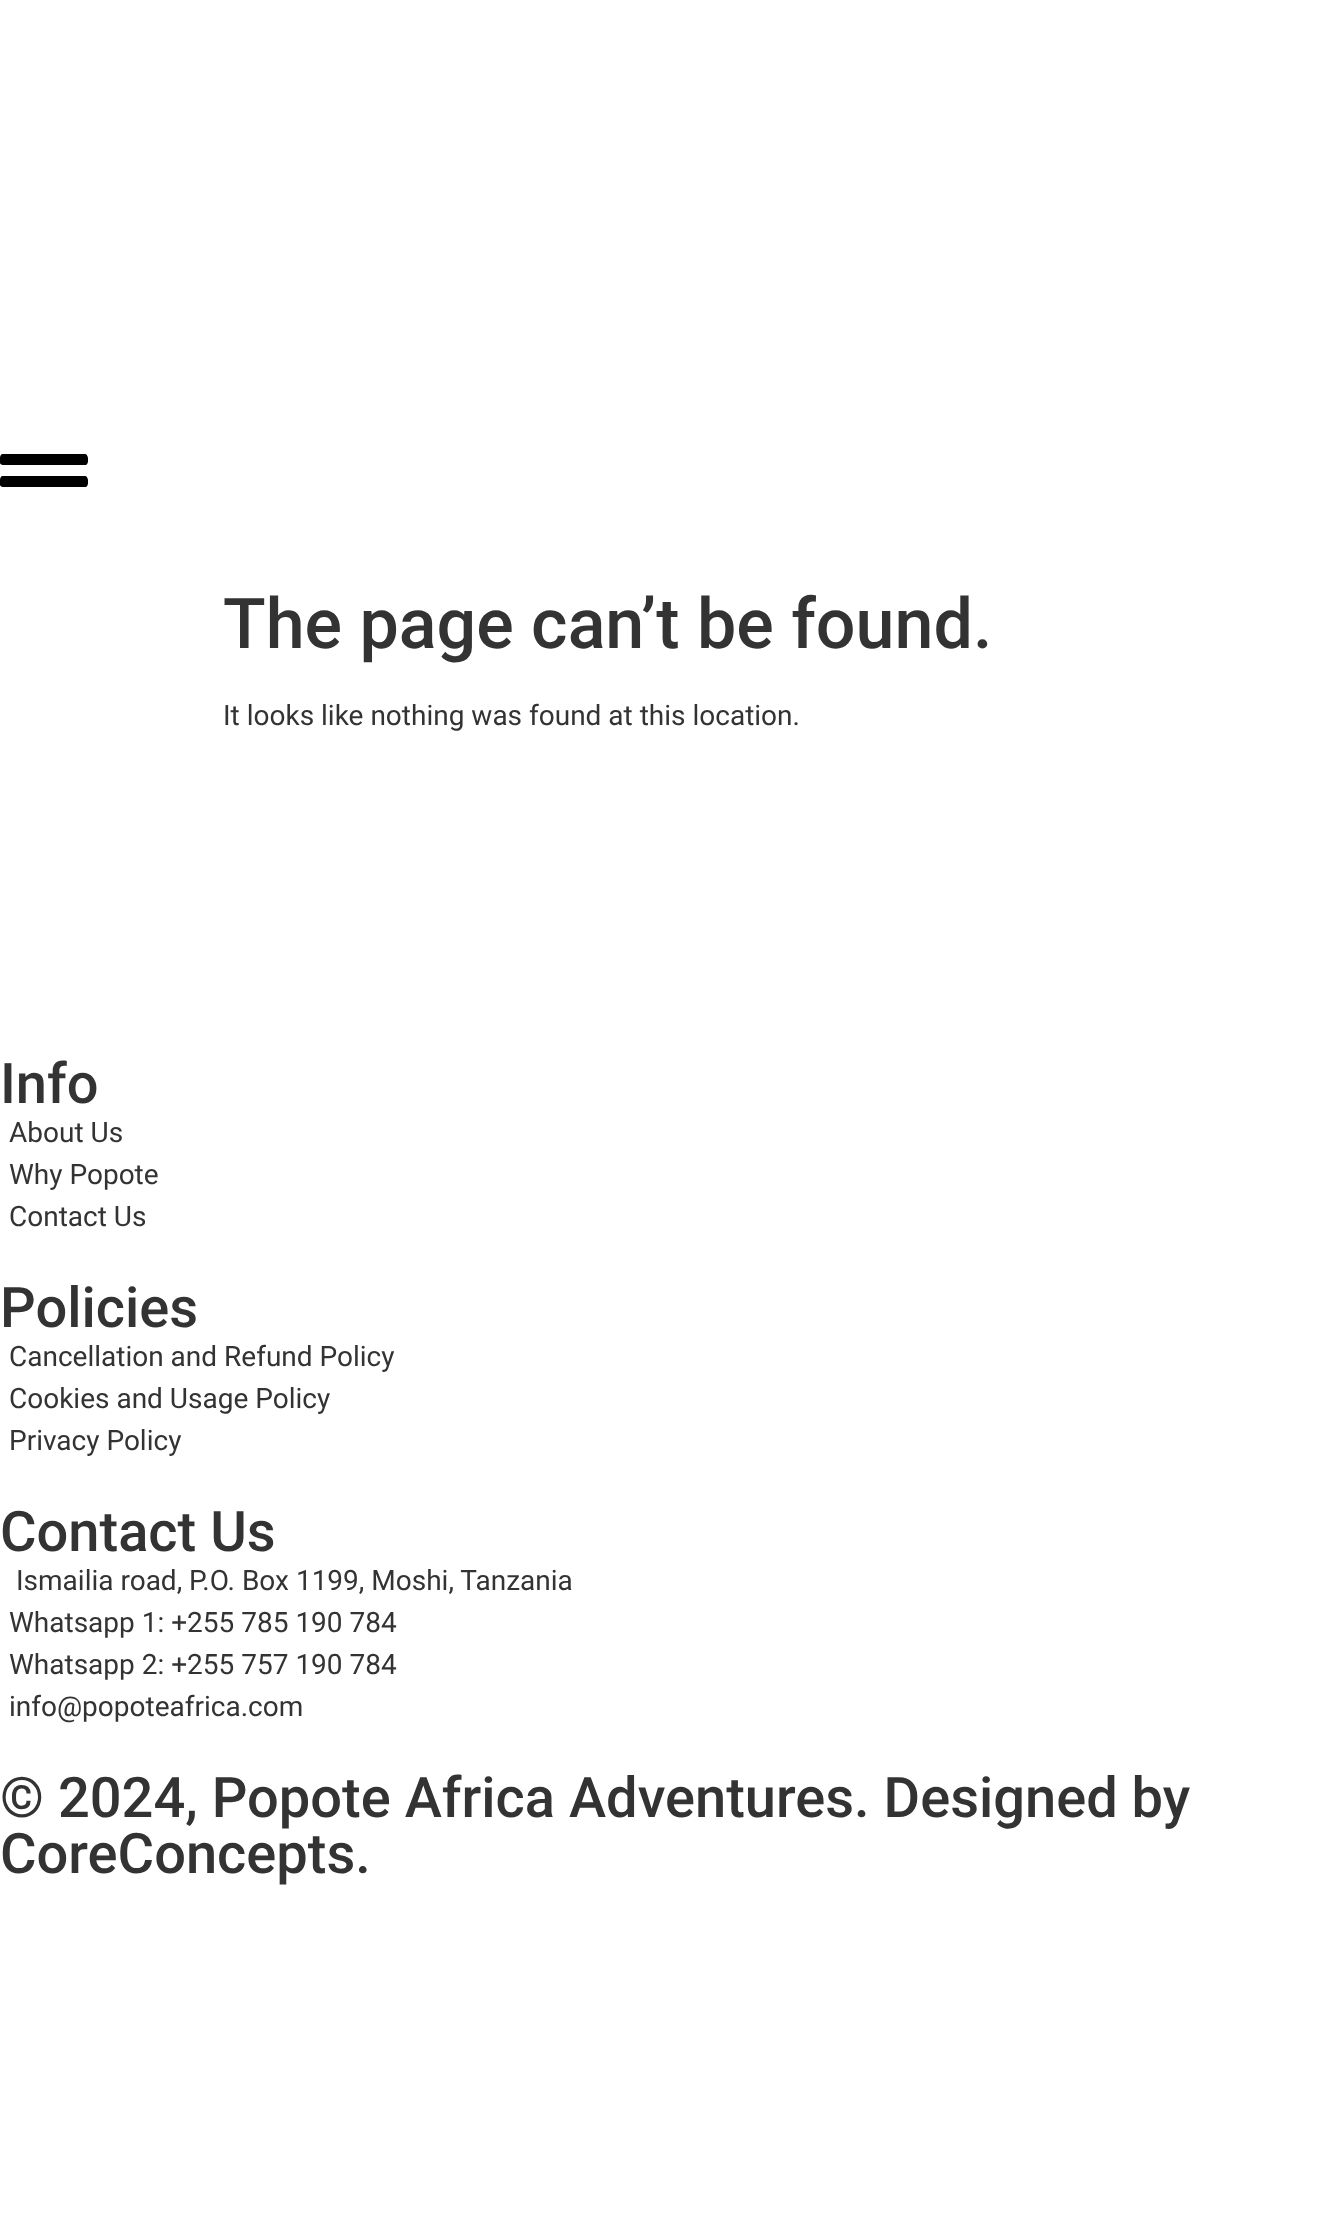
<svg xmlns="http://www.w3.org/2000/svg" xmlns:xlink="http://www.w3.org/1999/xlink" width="1321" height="2214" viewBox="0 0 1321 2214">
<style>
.cls-1{font:500 70px Roboto;fill:#333333}
.cls-2{font:28px Roboto;fill:#333333}
.cls-3{font:500 56px Roboto;fill:#333333}
</style>
<defs>
<clipPath id="clip1"><rect x="0" y="427" width="88" height="88"/></clipPath>
</defs>
<rect width="100%" height="100%" fill="#ffffff"/>
<g clip-path="url(#clip1)">
<path fill="#000000" d="M85 476H2C0 477 0 479 0 481C0 483-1 487 3 487H86C89 486 89 476 85 476ZM85 454H2C0 455 0 457 0 459C0 461-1 465 3 465H86C89 464 89 454 85 454Z"/>
</g>
<text class="cls-1" x="223" y="648">The page can’t be found.</text>
<text class="cls-2" x="223" y="725">It looks like nothing was found at this location.</text>
<text class="cls-3" x="0" y="1103">Info</text>
<text class="cls-2"><tspan x="9" y="1142">About Us</tspan><tspan x="9" y="1184">Why Popote</tspan><tspan x="9" y="1226">Contact Us</tspan></text>
<text class="cls-3" x="0" y="1327">Policies</text>
<text class="cls-2"><tspan x="9" y="1366">Cancellation and Refund Policy</tspan><tspan x="9" y="1408">Cookies and Usage Policy</tspan><tspan x="9" y="1450">Privacy Policy</tspan></text>
<text class="cls-3" x="0" y="1551">Contact Us</text>
<text class="cls-2" x="16" y="1590">Ismailia road, P.O. Box 1199, Moshi, Tanzania</text>
<text class="cls-2"><tspan x="9" y="1632">Whatsapp 1: +255 785 190 784</tspan><tspan x="9" y="1674">Whatsapp 2: +255 757 190 784</tspan><tspan x="9" y="1716">info@popoteafrica.com</tspan></text>
<text class="cls-3"><tspan x="0" y="1817">© 2024, Popote Africa Adventures. Designed by</tspan><tspan x="0" y="1873">CoreConcepts.</tspan></text>
</svg>
